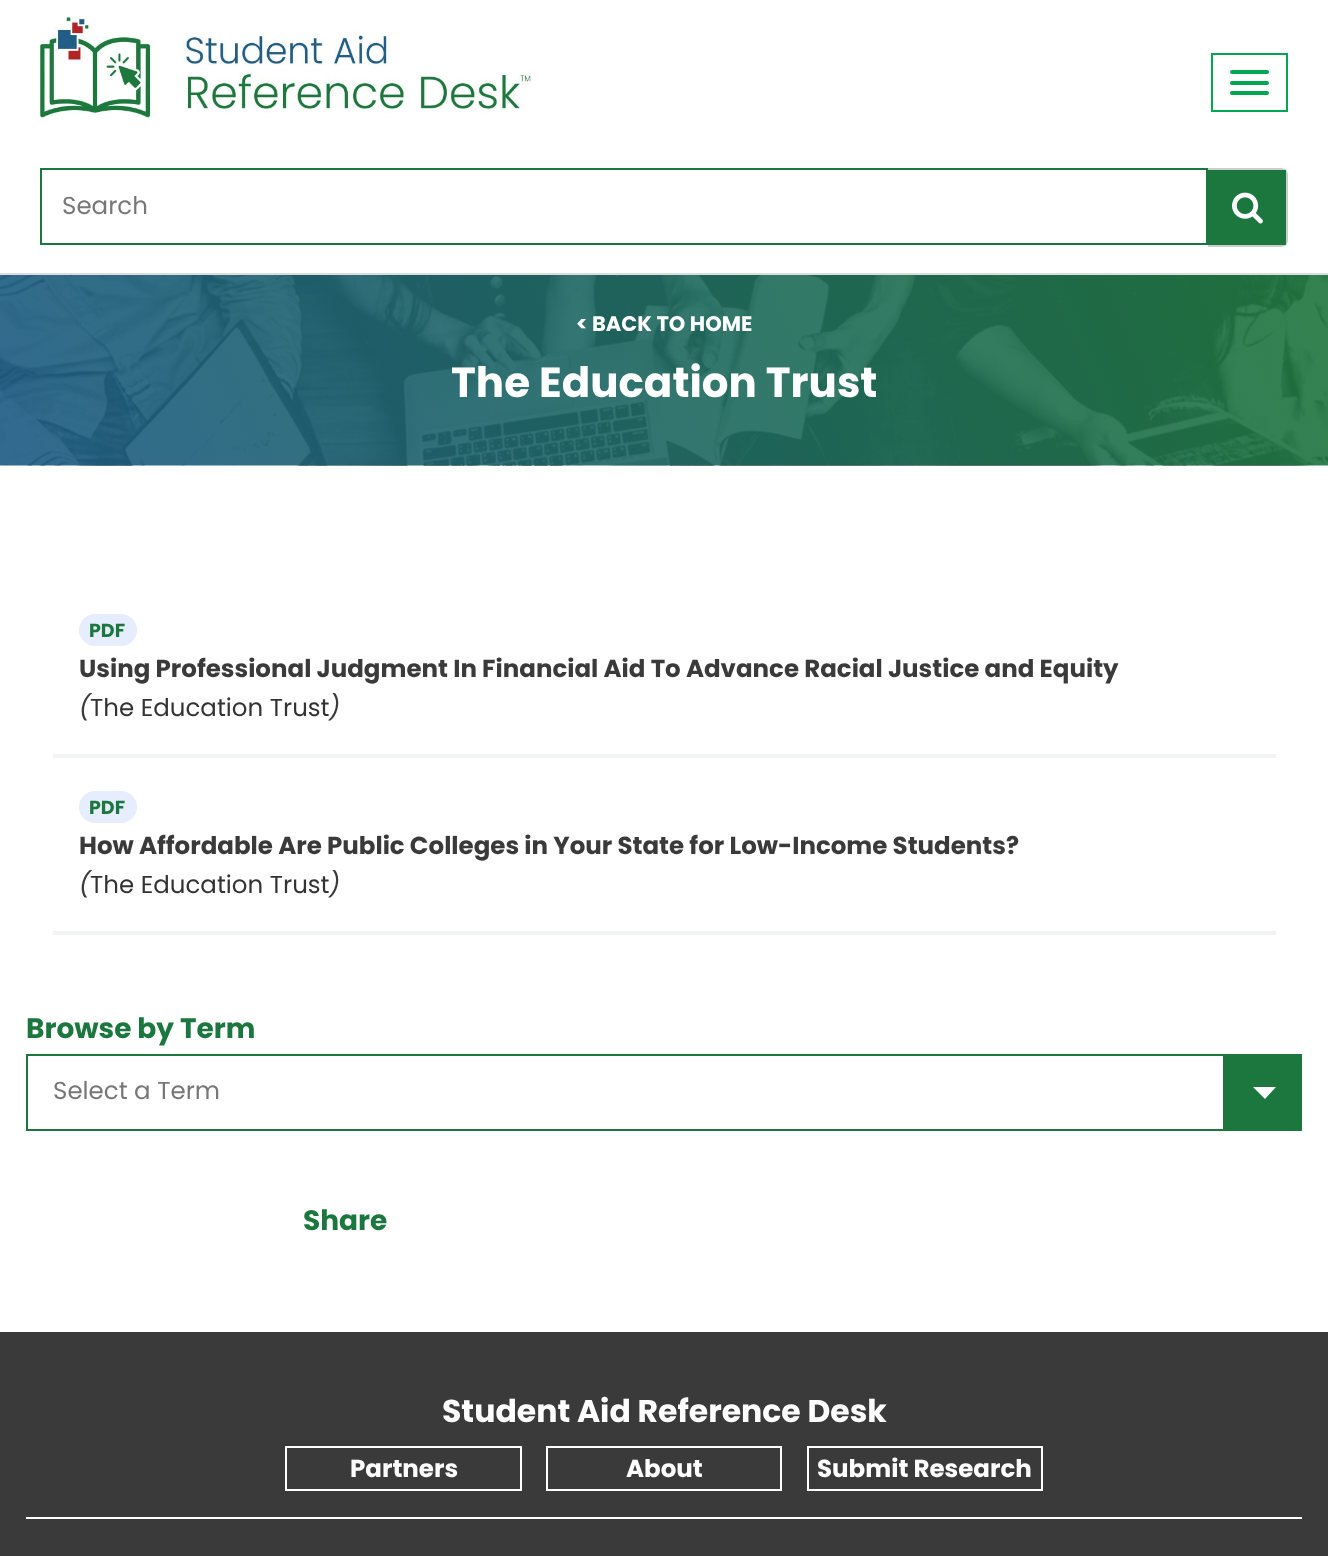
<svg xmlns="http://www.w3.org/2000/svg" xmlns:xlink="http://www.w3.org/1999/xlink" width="1328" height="1556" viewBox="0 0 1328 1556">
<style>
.cls-1{font:24.5px Poppins;fill:#777777}
.cls-2{font:bold 21px Poppins;fill:#ffffff}
.cls-3{font:bold 42px Poppins;fill:#ffffff}
.cls-4{font:bold 19px Poppins;fill:#1c773e}
.cls-5{font:bold 24.5px Poppins;fill:#3a3a3a}
.cls-6{font:italic 24.5px Poppins;fill:#3a3a3a}
.cls-7{font:24.5px Poppins;fill:#333333}
.cls-8{font:bold 28px Poppins;fill:#1c773e}
.cls-9{font:bold 31.5px Poppins;fill:#ffffff}
.cls-10{font:bold 24.5px Poppins;fill:#ffffff}
</style>
<rect width="100%" height="100%" fill="#ffffff"/>
<rect fill="#dddddd" x="0" y="273" width="1328" height="2"/>
<image xlink:href="image0.png" x="40" y="17" width="491" height="101"/>
<rect fill="none" stroke="#00a651" stroke-width="2" x="1212" y="54" width="75" height="57"/>
<rect fill="#00a651" x="1230" y="70" width="39" height="4" rx="2"/>
<rect fill="#00a651" x="1230" y="81" width="39" height="4" rx="2"/>
<rect fill="#00a651" x="1230" y="91" width="39" height="4" rx="2"/>
<rect fill="none" stroke="#1c773e" stroke-width="2" x="41" y="169" width="1166" height="75"/>
<path fill="#cccccc" fill-rule="evenodd" d="M1208 168H1281C1285 168 1288 171 1288 175V240C1288 244 1285 247 1281 247H1208ZM1208 170H1281C1284 170 1286 172 1286 175V240C1286 243 1284 245 1281 245H1208Z"/>
<rect fill="#1c773e" x="1208" y="170" width="78" height="75"/>
<image xlink:href="image1.png" x="1232" y="192" width="31" height="32"/>
<image xlink:href="image2.png" x="0" y="275" width="1328" height="191"/>
<rect fill="#f2f3f5" x="53" y="754" width="1223" height="4"/>
<rect fill="#e6edff" x="79" y="614" width="58" height="32" rx="16"/>
<rect fill="#f2f3f5" x="53" y="931" width="1223" height="4"/>
<rect fill="#e6edff" x="79" y="791" width="58" height="32" rx="16"/>
<rect fill="#1c773e" x="1223" y="1056" width="77" height="73"/>
<rect fill="none" stroke="#1c773e" stroke-width="2" x="27" y="1055" width="1274" height="75"/>
<path fill="#ffffff" d="M1253 1087H1276L1265 1099Z"/>
<rect fill="#3a3a3a" x="0" y="1332" width="1328" height="224"/>
<rect fill="none" stroke="#ffffff" stroke-width="2" x="286" y="1447" width="235" height="43"/>
<rect fill="none" stroke="#ffffff" stroke-width="2" x="547" y="1447" width="234" height="43"/>
<rect fill="none" stroke="#ffffff" stroke-width="2" x="808" y="1447" width="234" height="43"/>
<rect fill="#ffffff" x="26" y="1517" width="1276" height="2"/>
<text class="cls-1" x="62" y="214">Search</text>
<text class="cls-2" x="576" y="331">&lt; BACK TO HOME</text>
<text class="cls-3" x="451" y="397">The Education Trust</text>
<text class="cls-4" x="89" y="637">PDF</text>
<text class="cls-5" x="79" y="677">Using Professional Judgment In Financial Aid To Advance Racial Justice and Equity</text>
<text class="cls-6" x="79" y="716">(</text>
<text class="cls-7" x="90" y="716">The Education Trust</text>
<text class="cls-6" x="329" y="716">)</text>
<text class="cls-4" x="89" y="814">PDF</text>
<text class="cls-5" x="79" y="854">How Affordable Are Public Colleges in Your State for Low-Income Students?</text>
<text class="cls-6" x="79" y="893">(</text>
<text class="cls-7" x="90" y="893">The Education Trust</text>
<text class="cls-6" x="329" y="893">)</text>
<text class="cls-8" x="26" y="1038">Browse by Term</text>
<text class="cls-1" x="53" y="1099">Select a Term</text>
<text class="cls-8" x="303" y="1230">Share</text>
<text class="cls-9" x="442" y="1422">Student Aid Reference Desk</text>
<text class="cls-10" x="350" y="1477">Partners</text>
<text class="cls-10" x="626" y="1477">About</text>
<text class="cls-10" x="817" y="1477">Submit Research</text>
</svg>
